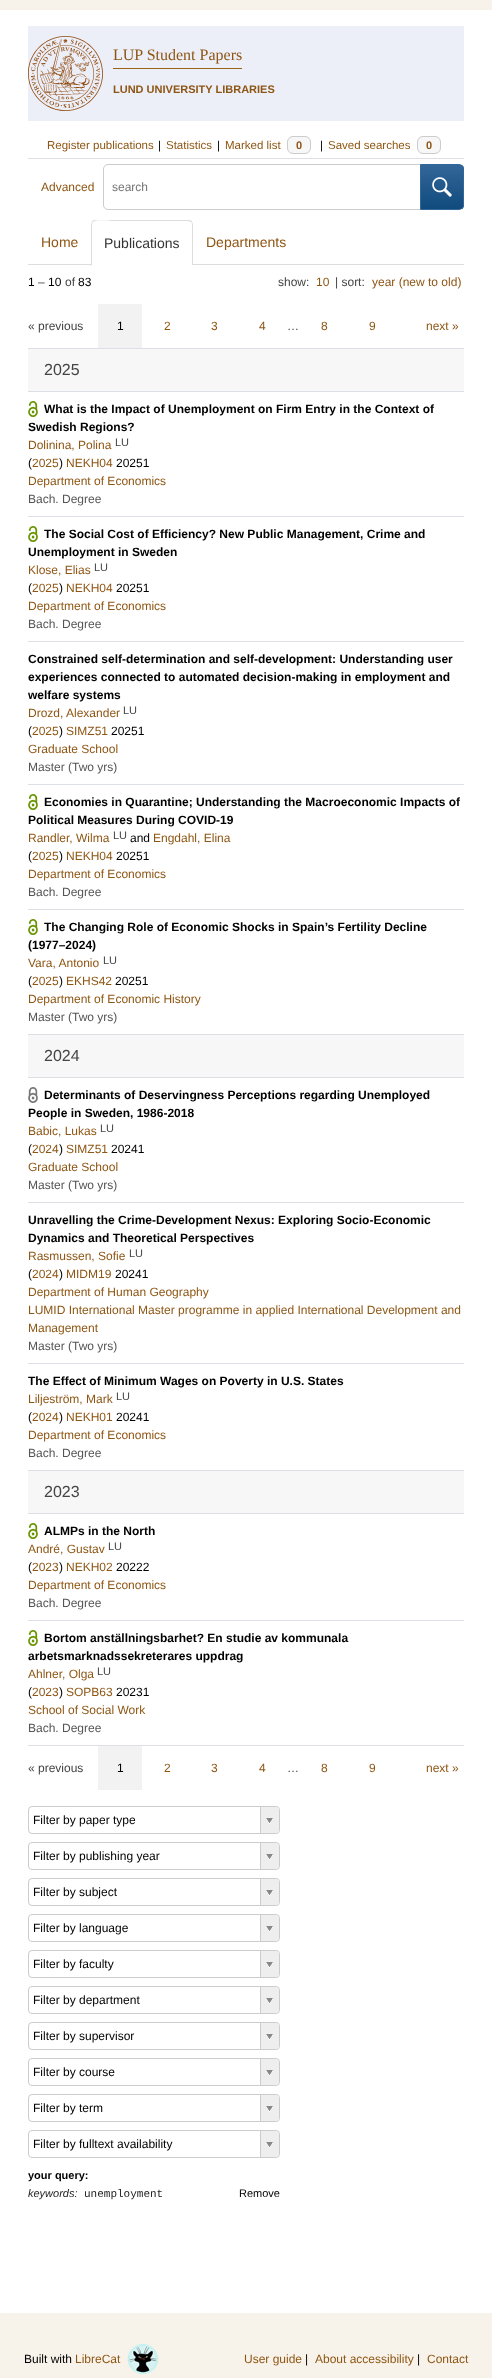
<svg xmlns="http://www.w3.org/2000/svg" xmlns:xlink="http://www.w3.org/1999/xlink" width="492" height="2378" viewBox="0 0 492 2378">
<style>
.cls-1{font:16px Liberation Serif;fill:#8e5614}
.cls-2{font:bold 11px Liberation Sans;fill:#8e5614}
.cls-3{font:11.5px Liberation Sans;fill:#8e5614}
.cls-4{font:11.5px Liberation Sans;fill:#000000}
.cls-5{font:12px Liberation Sans;fill:#8e5614}
.cls-6{font:12px Liberation Sans;fill:#757575}
.cls-7{font:14px Liberation Sans;fill:#8e5614}
.cls-8{font:14px Liberation Sans;fill:#333333}
.cls-9{font:12px Liberation Sans;fill:#000000}
.cls-10{font:12px Liberation Sans;fill:#444444}
.cls-11{font:16px Liberation Sans;fill:#444444}
.cls-12{font:bold 12px Liberation Sans;fill:#000000}
.cls-13{font:11px Liberation Sans;fill:#444444}
.cls-14{font:12px Liberation Sans;fill:#555555}
.cls-15{font:bold 11px Liberation Sans;fill:#000000}
.cls-16{font:italic 11px Liberation Sans;fill:#222222}
.cls-17{font:11px Liberation Mono;fill:#222222}
.cls-18{font:11px Liberation Sans;fill:#000000}
</style>
<defs>
<clipPath id="clip1"><path d="M420 164H459C462 164 464 166 464 169V205C464 208 462 210 459 210H420Z"/></clipPath>
<linearGradient id="g1" gradientUnits="userSpaceOnUse" x1="442" y1="165" x2="442" y2="209"><stop offset="0" stop-color="#336699"/><stop offset="1" stop-color="#104b7d"/></linearGradient>
<clipPath id="clip2"><rect x="29" y="1807" width="250" height="26" rx="3"/></clipPath>
<clipPath id="clip3"><rect x="29" y="1843" width="250" height="26" rx="3"/></clipPath>
<clipPath id="clip4"><rect x="29" y="1879" width="250" height="26" rx="3"/></clipPath>
<clipPath id="clip5"><rect x="29" y="1915" width="250" height="26" rx="3"/></clipPath>
<clipPath id="clip6"><rect x="29" y="1951" width="250" height="26" rx="3"/></clipPath>
<clipPath id="clip7"><rect x="29" y="1987" width="250" height="26" rx="3"/></clipPath>
<clipPath id="clip8"><rect x="29" y="2023" width="250" height="26" rx="3"/></clipPath>
<clipPath id="clip9"><rect x="29" y="2059" width="250" height="26" rx="3"/></clipPath>
<clipPath id="clip10"><rect x="29" y="2095" width="250" height="26" rx="3"/></clipPath>
<clipPath id="clip11"><rect x="29" y="2131" width="250" height="26" rx="3"/></clipPath>
</defs>
<rect width="100%" height="100%" fill="#ffffff"/>
<rect fill="#f8f3ea" x="0" y="0" width="492" height="10"/>
<rect fill="#eceff8" x="28" y="26" width="436" height="95"/>
<image xlink:href="image0.png" x="28" y="36" width="75" height="75"/>
<rect fill="#9c6114" x="113" y="68" width="129" height="1"/>
<rect fill="#dcdfe4" x="28" y="158" width="436" height="1"/>
<rect fill="#f7f7f7" stroke="#cccccc" x="287.5" y="136.5" width="23" height="17" rx="5.5"/>
<rect fill="#f7f7f7" stroke="#cccccc" x="417.5" y="136.5" width="23" height="17" rx="5.5"/>
<path fill="none" stroke="#cccccc" d="M108 164.5H420.5V209.5H108C105.5 209.5 103.5 207.5 103.5 205V169C103.5 166.5 105.5 164.5 108 164.5Z"/>
<g clip-path="url(#clip1)">
<rect fill="url(#g1)" x="421" y="165" width="43" height="44"/>
</g>
<path fill="none" stroke="#336699" d="M420.5 164.5H459C461.5 164.5 463.5 166.5 463.5 169V205C463.5 207.5 461.5 209.5 459 209.5H420.5Z"/>
<image xlink:href="image1.png" x="432" y="177" width="20" height="20"/>
<rect fill="#dddddd" x="28" y="264" width="436" height="1"/>
<path fill="#ffffff" d="M96 220H188C191 220 193 222 193 225V266H91V225C91 222 93 220 96 220Z"/>
<path fill="#dddddd" d="M96 220C94 220 93 220 92 221L93 222C97 219 111 221 111 221H188L191 222L192 221C191 220 190 220 188 220Z"/>
<path fill="#dddddd" d="M193 266V225C193 224 192 222 192 221L191 222C192 223 192 224 192 225V265Z"/>
<path fill="#ffffff" d="M193 266L192 265H92L91 266Z"/>
<path fill="#dddddd" d="M91 266L92 265V225C92 224 92 223 93 222L92 221C92 222 91 224 91 225Z"/>
<rect fill="#f2f2f2" x="98" y="304" width="44" height="44"/>
<rect fill="#dcdfe4" x="28" y="348" width="436" height="1"/>
<rect fill="#f7f7f7" x="28" y="349" width="436" height="42"/>
<rect fill="#dcdfe4" x="28" y="391" width="436" height="1"/>
<image xlink:href="image2.png" x="28" y="401" width="10" height="16"/>
<rect fill="#dcdfe4" x="28" y="516" width="436" height="1"/>
<image xlink:href="image2.png" x="28" y="526" width="10" height="16"/>
<rect fill="#dcdfe4" x="28" y="641" width="436" height="1"/>
<rect fill="#dcdfe4" x="28" y="784" width="436" height="1"/>
<image xlink:href="image2.png" x="28" y="794" width="10" height="16"/>
<rect fill="#dcdfe4" x="28" y="909" width="436" height="1"/>
<image xlink:href="image2.png" x="28" y="919" width="10" height="16"/>
<rect fill="#dcdfe4" x="28" y="1034" width="436" height="1"/>
<rect fill="#f7f7f7" x="28" y="1035" width="436" height="42"/>
<rect fill="#dcdfe4" x="28" y="1077" width="436" height="1"/>
<image xlink:href="image3.png" x="28" y="1087" width="10" height="16"/>
<rect fill="#dcdfe4" x="28" y="1202" width="436" height="1"/>
<rect fill="#dcdfe4" x="28" y="1363" width="436" height="1"/>
<rect fill="#dcdfe4" x="28" y="1470" width="436" height="1"/>
<rect fill="#f7f7f7" x="28" y="1471" width="436" height="42"/>
<rect fill="#dcdfe4" x="28" y="1513" width="436" height="1"/>
<image xlink:href="image2.png" x="28" y="1523" width="10" height="16"/>
<rect fill="#dcdfe4" x="28" y="1620" width="436" height="1"/>
<image xlink:href="image2.png" x="28" y="1630" width="10" height="16"/>
<rect fill="#dcdfe4" x="28" y="1745" width="436" height="1"/>
<rect fill="#f2f2f2" x="98" y="1746" width="44" height="44"/>
<rect fill="none" stroke="#cccccc" x="28.5" y="1806.5" width="251" height="27" rx="3.5"/>
<g clip-path="url(#clip2)">
<path fill="#eeeeee" d="M260 1807H275C277 1807 279 1809 279 1811V1829C279 1831 277 1833 275 1833H260Z"/>
</g>
<rect fill="#cccccc" x="260" y="1807" width="1" height="26"/>
<image xlink:href="image4.png" x="266" y="1818" width="7" height="6"/>
<rect fill="none" stroke="#cccccc" x="28.5" y="1842.5" width="251" height="27" rx="3.5"/>
<g clip-path="url(#clip3)">
<path fill="#eeeeee" d="M260 1843H275C277 1843 279 1845 279 1847V1865C279 1867 277 1869 275 1869H260Z"/>
</g>
<rect fill="#cccccc" x="260" y="1843" width="1" height="26"/>
<image xlink:href="image4.png" x="266" y="1854" width="7" height="6"/>
<rect fill="none" stroke="#cccccc" x="28.5" y="1878.5" width="251" height="27" rx="3.5"/>
<g clip-path="url(#clip4)">
<path fill="#eeeeee" d="M260 1879H275C277 1879 279 1881 279 1883V1901C279 1903 277 1905 275 1905H260Z"/>
</g>
<rect fill="#cccccc" x="260" y="1879" width="1" height="26"/>
<image xlink:href="image4.png" x="266" y="1890" width="7" height="6"/>
<rect fill="none" stroke="#cccccc" x="28.5" y="1914.5" width="251" height="27" rx="3.5"/>
<g clip-path="url(#clip5)">
<path fill="#eeeeee" d="M260 1915H275C277 1915 279 1917 279 1919V1937C279 1939 277 1941 275 1941H260Z"/>
</g>
<rect fill="#cccccc" x="260" y="1915" width="1" height="26"/>
<image xlink:href="image4.png" x="266" y="1926" width="7" height="6"/>
<rect fill="none" stroke="#cccccc" x="28.5" y="1950.5" width="251" height="27" rx="3.5"/>
<g clip-path="url(#clip6)">
<path fill="#eeeeee" d="M260 1951H275C277 1951 279 1953 279 1955V1973C279 1975 277 1977 275 1977H260Z"/>
</g>
<rect fill="#cccccc" x="260" y="1951" width="1" height="26"/>
<image xlink:href="image4.png" x="266" y="1962" width="7" height="6"/>
<rect fill="none" stroke="#cccccc" x="28.5" y="1986.5" width="251" height="27" rx="3.5"/>
<g clip-path="url(#clip7)">
<path fill="#eeeeee" d="M260 1987H275C277 1987 279 1989 279 1991V2009C279 2011 277 2013 275 2013H260Z"/>
</g>
<rect fill="#cccccc" x="260" y="1987" width="1" height="26"/>
<image xlink:href="image4.png" x="266" y="1998" width="7" height="6"/>
<rect fill="none" stroke="#cccccc" x="28.5" y="2022.5" width="251" height="27" rx="3.5"/>
<g clip-path="url(#clip8)">
<path fill="#eeeeee" d="M260 2023H275C277 2023 279 2025 279 2027V2045C279 2047 277 2049 275 2049H260Z"/>
</g>
<rect fill="#cccccc" x="260" y="2023" width="1" height="26"/>
<image xlink:href="image4.png" x="266" y="2034" width="7" height="6"/>
<rect fill="none" stroke="#cccccc" x="28.5" y="2058.5" width="251" height="27" rx="3.5"/>
<g clip-path="url(#clip9)">
<path fill="#eeeeee" d="M260 2059H275C277 2059 279 2061 279 2063V2081C279 2083 277 2085 275 2085H260Z"/>
</g>
<rect fill="#cccccc" x="260" y="2059" width="1" height="26"/>
<image xlink:href="image4.png" x="266" y="2070" width="7" height="6"/>
<rect fill="none" stroke="#cccccc" x="28.5" y="2094.5" width="251" height="27" rx="3.5"/>
<g clip-path="url(#clip10)">
<path fill="#eeeeee" d="M260 2095H275C277 2095 279 2097 279 2099V2117C279 2119 277 2121 275 2121H260Z"/>
</g>
<rect fill="#cccccc" x="260" y="2095" width="1" height="26"/>
<image xlink:href="image4.png" x="266" y="2106" width="7" height="6"/>
<rect fill="none" stroke="#cccccc" x="28.5" y="2130.5" width="251" height="27" rx="3.5"/>
<g clip-path="url(#clip11)">
<path fill="#eeeeee" d="M260 2131H275C277 2131 279 2133 279 2135V2153C279 2155 277 2157 275 2157H260Z"/>
</g>
<rect fill="#cccccc" x="260" y="2131" width="1" height="26"/>
<image xlink:href="image4.png" x="266" y="2142" width="7" height="6"/>
<rect fill="#f8f3ea" x="0" y="2313" width="492" height="65"/>
<image xlink:href="image5.png" x="127" y="2344" width="32" height="31"/>
<text class="cls-1" x="113" y="60">LUP Student Papers</text>
<text class="cls-2" x="113" y="93">LUND UNIVERSITY LIBRARIES</text>
<text class="cls-3" x="47" y="149">Register publications</text>
<text class="cls-4" x="158" y="149">|</text>
<text class="cls-3" x="166" y="149">Statistics</text>
<text class="cls-4" x="217" y="149">|</text>
<text class="cls-3" x="225" y="149">Marked list</text>
<text class="cls-2" x="296" y="149">0</text>
<text class="cls-4" x="320" y="149">|</text>
<text class="cls-3" x="328" y="149">Saved searches</text>
<text class="cls-2" x="426" y="149">0</text>
<text class="cls-5" x="41" y="191">Advanced</text>
<text class="cls-6" x="112" y="191">search</text>
<text class="cls-7" x="41" y="247">Home</text>
<text class="cls-8" x="104" y="248">Publications</text>
<text class="cls-7" x="206" y="247">Departments</text>
<text class="cls-9" x="28" y="286">1</text>
<text class="cls-10" x="38" y="286">–</text>
<text class="cls-9" x="48" y="286">10</text>
<text class="cls-10" x="65" y="286">of</text>
<text class="cls-9" x="78" y="286">83</text>
<text class="cls-10" x="278" y="286">show:</text>
<text class="cls-5" x="316" y="286">10</text>
<text class="cls-10" x="335" y="286">| sort:</text>
<text class="cls-5" x="372" y="286">year (new to old)</text>
<text class="cls-10" x="28" y="330">« previous</text>
<text class="cls-9" x="117" y="330">1</text>
<text class="cls-5" x="164" y="330">2</text>
<text class="cls-5" x="211" y="330">3</text>
<text class="cls-5" x="259" y="330">4</text>
<text class="cls-10" x="287" y="330">…</text>
<text class="cls-5" x="321" y="330">8</text>
<text class="cls-5" x="369" y="330">9</text>
<text class="cls-5" x="426" y="330">next »</text>
<text class="cls-11" x="44" y="375">2025</text>
<text class="cls-12" x="44" y="413">What is the Impact of Unemployment on Firm Entry in the Context of</text>
<text class="cls-12" x="28" y="431">Swedish Regions?</text>
<text class="cls-5" x="28" y="449">Dolinina, Polina</text>
<text class="cls-13" x="115" y="446">LU</text>
<text class="cls-9" x="28" y="467">(</text>
<text class="cls-5" x="32" y="467">2025</text>
<text class="cls-9" x="59" y="467">)</text>
<text class="cls-5" x="66" y="467">NEKH04</text>
<text class="cls-9" x="116" y="467">20251</text>
<text class="cls-5" x="28" y="485">Department of Economics</text>
<text class="cls-14" x="28" y="503">Bach. Degree</text>
<text class="cls-12" x="44" y="538">The Social Cost of Efficiency? New Public Management, Crime and</text>
<text class="cls-12" x="28" y="556">Unemployment in Sweden</text>
<text class="cls-5" x="28" y="574">Klose, Elias</text>
<text class="cls-13" x="94" y="571">LU</text>
<text class="cls-9" x="28" y="592">(</text>
<text class="cls-5" x="32" y="592">2025</text>
<text class="cls-9" x="59" y="592">)</text>
<text class="cls-5" x="66" y="592">NEKH04</text>
<text class="cls-9" x="116" y="592">20251</text>
<text class="cls-5" x="28" y="610">Department of Economics</text>
<text class="cls-14" x="28" y="628">Bach. Degree</text>
<text class="cls-12"><tspan x="28" y="663">Constrained self-determination and self-development: Understanding user</tspan><tspan x="28" y="681">experiences connected to automated decision-making in employment and</tspan><tspan x="28" y="699">welfare systems</tspan></text>
<text class="cls-5" x="28" y="717">Drozd, Alexander</text>
<text class="cls-13" x="123" y="714">LU</text>
<text class="cls-9" x="28" y="735">(</text>
<text class="cls-5" x="32" y="735">2025</text>
<text class="cls-9" x="59" y="735">)</text>
<text class="cls-5" x="66" y="735">SIMZ51</text>
<text class="cls-9" x="111" y="735">20251</text>
<text class="cls-5" x="28" y="753">Graduate School</text>
<text class="cls-14" x="28" y="771">Master (Two yrs)</text>
<text class="cls-12" x="44" y="806">Economies in Quarantine; Understanding the Macroeconomic Impacts of</text>
<text class="cls-12" x="28" y="824">Political Measures During COVID-19</text>
<text class="cls-5" x="28" y="842">Randler, Wilma</text>
<text class="cls-13" x="113" y="839">LU</text>
<text class="cls-9" x="130" y="842">and</text>
<text class="cls-5" x="153" y="842">Engdahl, Elina</text>
<text class="cls-9" x="28" y="860">(</text>
<text class="cls-5" x="32" y="860">2025</text>
<text class="cls-9" x="59" y="860">)</text>
<text class="cls-5" x="66" y="860">NEKH04</text>
<text class="cls-9" x="116" y="860">20251</text>
<text class="cls-5" x="28" y="878">Department of Economics</text>
<text class="cls-14" x="28" y="896">Bach. Degree</text>
<text class="cls-12" x="44" y="931">The Changing Role of Economic Shocks in Spain’s Fertility Decline</text>
<text class="cls-12" x="28" y="949">(1977–2024)</text>
<text class="cls-5" x="28" y="967">Vara, Antonio</text>
<text class="cls-13" x="103" y="964">LU</text>
<text class="cls-9" x="28" y="985">(</text>
<text class="cls-5" x="32" y="985">2025</text>
<text class="cls-9" x="59" y="985">)</text>
<text class="cls-5" x="66" y="985">EKHS42</text>
<text class="cls-9" x="115" y="985">20251</text>
<text class="cls-5" x="28" y="1003">Department of Economic History</text>
<text class="cls-14" x="28" y="1021">Master (Two yrs)</text>
<text class="cls-11" x="44" y="1061">2024</text>
<text class="cls-12" x="44" y="1099">Determinants of Deservingness Perceptions regarding Unemployed</text>
<text class="cls-12" x="28" y="1117">People in Sweden, 1986-2018</text>
<text class="cls-5" x="28" y="1135">Babic, Lukas</text>
<text class="cls-13" x="100" y="1132">LU</text>
<text class="cls-9" x="28" y="1153">(</text>
<text class="cls-5" x="32" y="1153">2024</text>
<text class="cls-9" x="59" y="1153">)</text>
<text class="cls-5" x="66" y="1153">SIMZ51</text>
<text class="cls-9" x="111" y="1153">20241</text>
<text class="cls-5" x="28" y="1171">Graduate School</text>
<text class="cls-14" x="28" y="1189">Master (Two yrs)</text>
<text class="cls-12"><tspan x="28" y="1224">Unravelling the Crime-Development Nexus: Exploring Socio-Economic</tspan><tspan x="28" y="1242">Dynamics and Theoretical Perspectives</tspan></text>
<text class="cls-5" x="28" y="1260">Rasmussen, Sofie</text>
<text class="cls-13" x="129" y="1257">LU</text>
<text class="cls-9" x="28" y="1278">(</text>
<text class="cls-5" x="32" y="1278">2024</text>
<text class="cls-9" x="59" y="1278">)</text>
<text class="cls-5" x="66" y="1278">MIDM19</text>
<text class="cls-9" x="115" y="1278">20241</text>
<text class="cls-5"><tspan x="28" y="1296">Department of Human Geography</tspan><tspan x="28" y="1314">LUMID International Master programme in applied International Development and</tspan><tspan x="28" y="1332">Management</tspan></text>
<text class="cls-14" x="28" y="1350">Master (Two yrs)</text>
<text class="cls-12" x="28" y="1385">The Effect of Minimum Wages on Poverty in U.S. States</text>
<text class="cls-5" x="28" y="1403">Liljeström, Mark</text>
<text class="cls-13" x="116" y="1400">LU</text>
<text class="cls-9" x="28" y="1421">(</text>
<text class="cls-5" x="32" y="1421">2024</text>
<text class="cls-9" x="59" y="1421">)</text>
<text class="cls-5" x="66" y="1421">NEKH01</text>
<text class="cls-9" x="116" y="1421">20241</text>
<text class="cls-5" x="28" y="1439">Department of Economics</text>
<text class="cls-14" x="28" y="1457">Bach. Degree</text>
<text class="cls-11" x="44" y="1497">2023</text>
<text class="cls-12" x="44" y="1535">ALMPs in the North</text>
<text class="cls-5" x="28" y="1553">André, Gustav</text>
<text class="cls-13" x="108" y="1550">LU</text>
<text class="cls-9" x="28" y="1571">(</text>
<text class="cls-5" x="32" y="1571">2023</text>
<text class="cls-9" x="59" y="1571">)</text>
<text class="cls-5" x="66" y="1571">NEKH02</text>
<text class="cls-9" x="116" y="1571">20222</text>
<text class="cls-5" x="28" y="1589">Department of Economics</text>
<text class="cls-14" x="28" y="1607">Bach. Degree</text>
<text class="cls-12" x="44" y="1642">Bortom anställningsbarhet? En studie av kommunala</text>
<text class="cls-12" x="28" y="1660">arbetsmarknadssekreterares uppdrag</text>
<text class="cls-5" x="28" y="1678">Ahlner, Olga</text>
<text class="cls-13" x="97" y="1675">LU</text>
<text class="cls-9" x="28" y="1696">(</text>
<text class="cls-5" x="32" y="1696">2023</text>
<text class="cls-9" x="59" y="1696">)</text>
<text class="cls-5" x="66" y="1696">SOPB63</text>
<text class="cls-9" x="116" y="1696">20231</text>
<text class="cls-5" x="28" y="1714">School of Social Work</text>
<text class="cls-14" x="28" y="1732">Bach. Degree</text>
<text class="cls-10" x="28" y="1772">« previous</text>
<text class="cls-9" x="117" y="1772">1</text>
<text class="cls-5" x="164" y="1772">2</text>
<text class="cls-5" x="211" y="1772">3</text>
<text class="cls-5" x="259" y="1772">4</text>
<text class="cls-10" x="287" y="1772">…</text>
<text class="cls-5" x="321" y="1772">8</text>
<text class="cls-5" x="369" y="1772">9</text>
<text class="cls-5" x="426" y="1772">next »</text>
<text class="cls-9" x="33" y="1824">Filter by paper type</text>
<text class="cls-9" x="33" y="1860">Filter by publishing year</text>
<text class="cls-9" x="33" y="1896">Filter by subject</text>
<text class="cls-9" x="33" y="1932">Filter by language</text>
<text class="cls-9" x="33" y="1968">Filter by faculty</text>
<text class="cls-9" x="33" y="2004">Filter by department</text>
<text class="cls-9" x="33" y="2040">Filter by supervisor</text>
<text class="cls-9" x="33" y="2076">Filter by course</text>
<text class="cls-9" x="33" y="2112">Filter by term</text>
<text class="cls-9" x="33" y="2148">Filter by fulltext availability</text>
<text class="cls-15" x="28" y="2179">your query:</text>
<text class="cls-16" x="28" y="2197">keywords:</text>
<text class="cls-17" x="84" y="2197">unemployment</text>
<text class="cls-18" x="239" y="2197">Remove</text>
<text class="cls-9" x="24" y="2363">Built with</text>
<text class="cls-5" x="75" y="2363">LibreCat</text>
<text class="cls-5" x="244" y="2363">User guide</text>
<text class="cls-9" x="305" y="2363">|</text>
<text class="cls-5" x="315" y="2363">About accessibility</text>
<text class="cls-9" x="417" y="2363">|</text>
<text class="cls-5" x="427" y="2363">Contact</text>
</svg>
